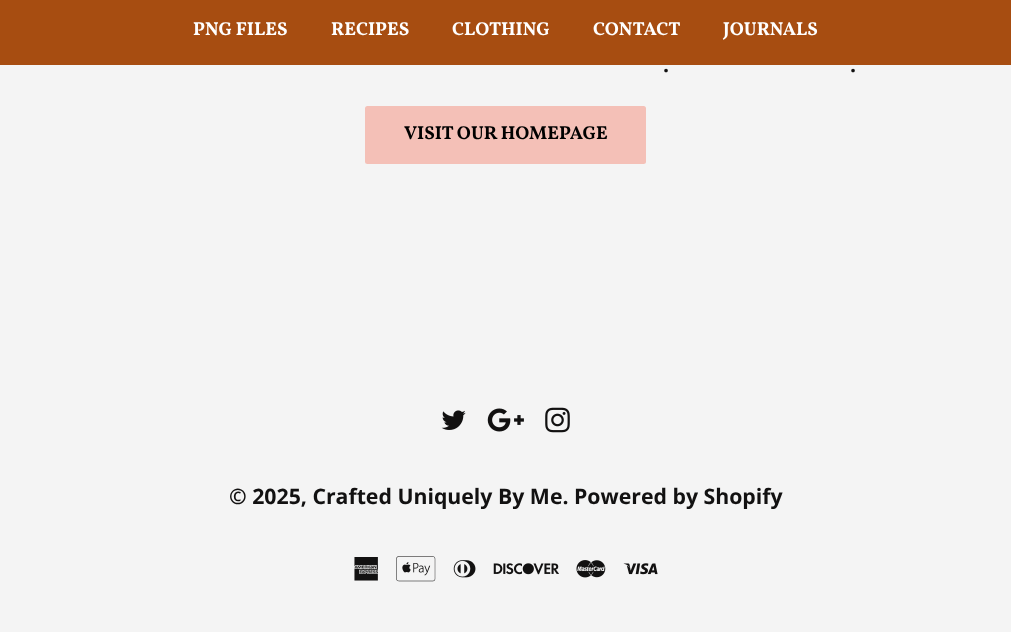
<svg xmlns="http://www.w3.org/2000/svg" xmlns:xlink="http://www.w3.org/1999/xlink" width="1011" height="632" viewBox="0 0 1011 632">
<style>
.cls-1{font:bold 18.75px Vollkorn;fill:#ffffff}
.cls-2{font:bold 21.25px Open Sans;fill:#121111}
.cls-3{font:bold 18.75px Vollkorn;fill:#000000}
</style>
<rect width="100%" height="100%" fill="#f4f4f4"/>
<rect fill="#a74d11" x="0" y="0" width="1011" height="65"/>
<rect fill="#f4c0b7" x="365" y="106" width="281" height="58" rx="2.5"/>
<image xlink:href="image0.png" x="441" y="410" width="25" height="20"/>
<image xlink:href="image1.png" x="487" y="408" width="37" height="24"/>
<image xlink:href="image2.png" x="545" y="407" width="25" height="26"/>
<image xlink:href="image3.png" x="354" y="557" width="24" height="24"/>
<image xlink:href="image4.png" x="396" y="556" width="40" height="26"/>
<image xlink:href="image5.png" x="453" y="560" width="23" height="18"/>
<image xlink:href="image6.png" x="493" y="563" width="66" height="12"/>
<image xlink:href="image7.png" x="576" y="560" width="30" height="18"/>
<image xlink:href="image8.png" x="623" y="563" width="35" height="12"/>
<text class="cls-1" x="193" y="35">PNG FILES</text>
<text class="cls-1" x="331" y="35">RECIPES</text>
<text class="cls-1" x="452" y="35">CLOTHING</text>
<text class="cls-1" x="593" y="35">CONTACT</text>
<text class="cls-1" x="723" y="35">JOURNALS</text>
<text class="cls-2" x="663" y="72">.</text>
<text class="cls-2" x="850" y="72">.</text>
<text class="cls-3" x="404" y="139">VISIT OUR HOMEPAGE</text>
<text class="cls-2" x="229" y="504">© 2025, Crafted Uniquely By Me. Powered by Shopify</text>
</svg>
